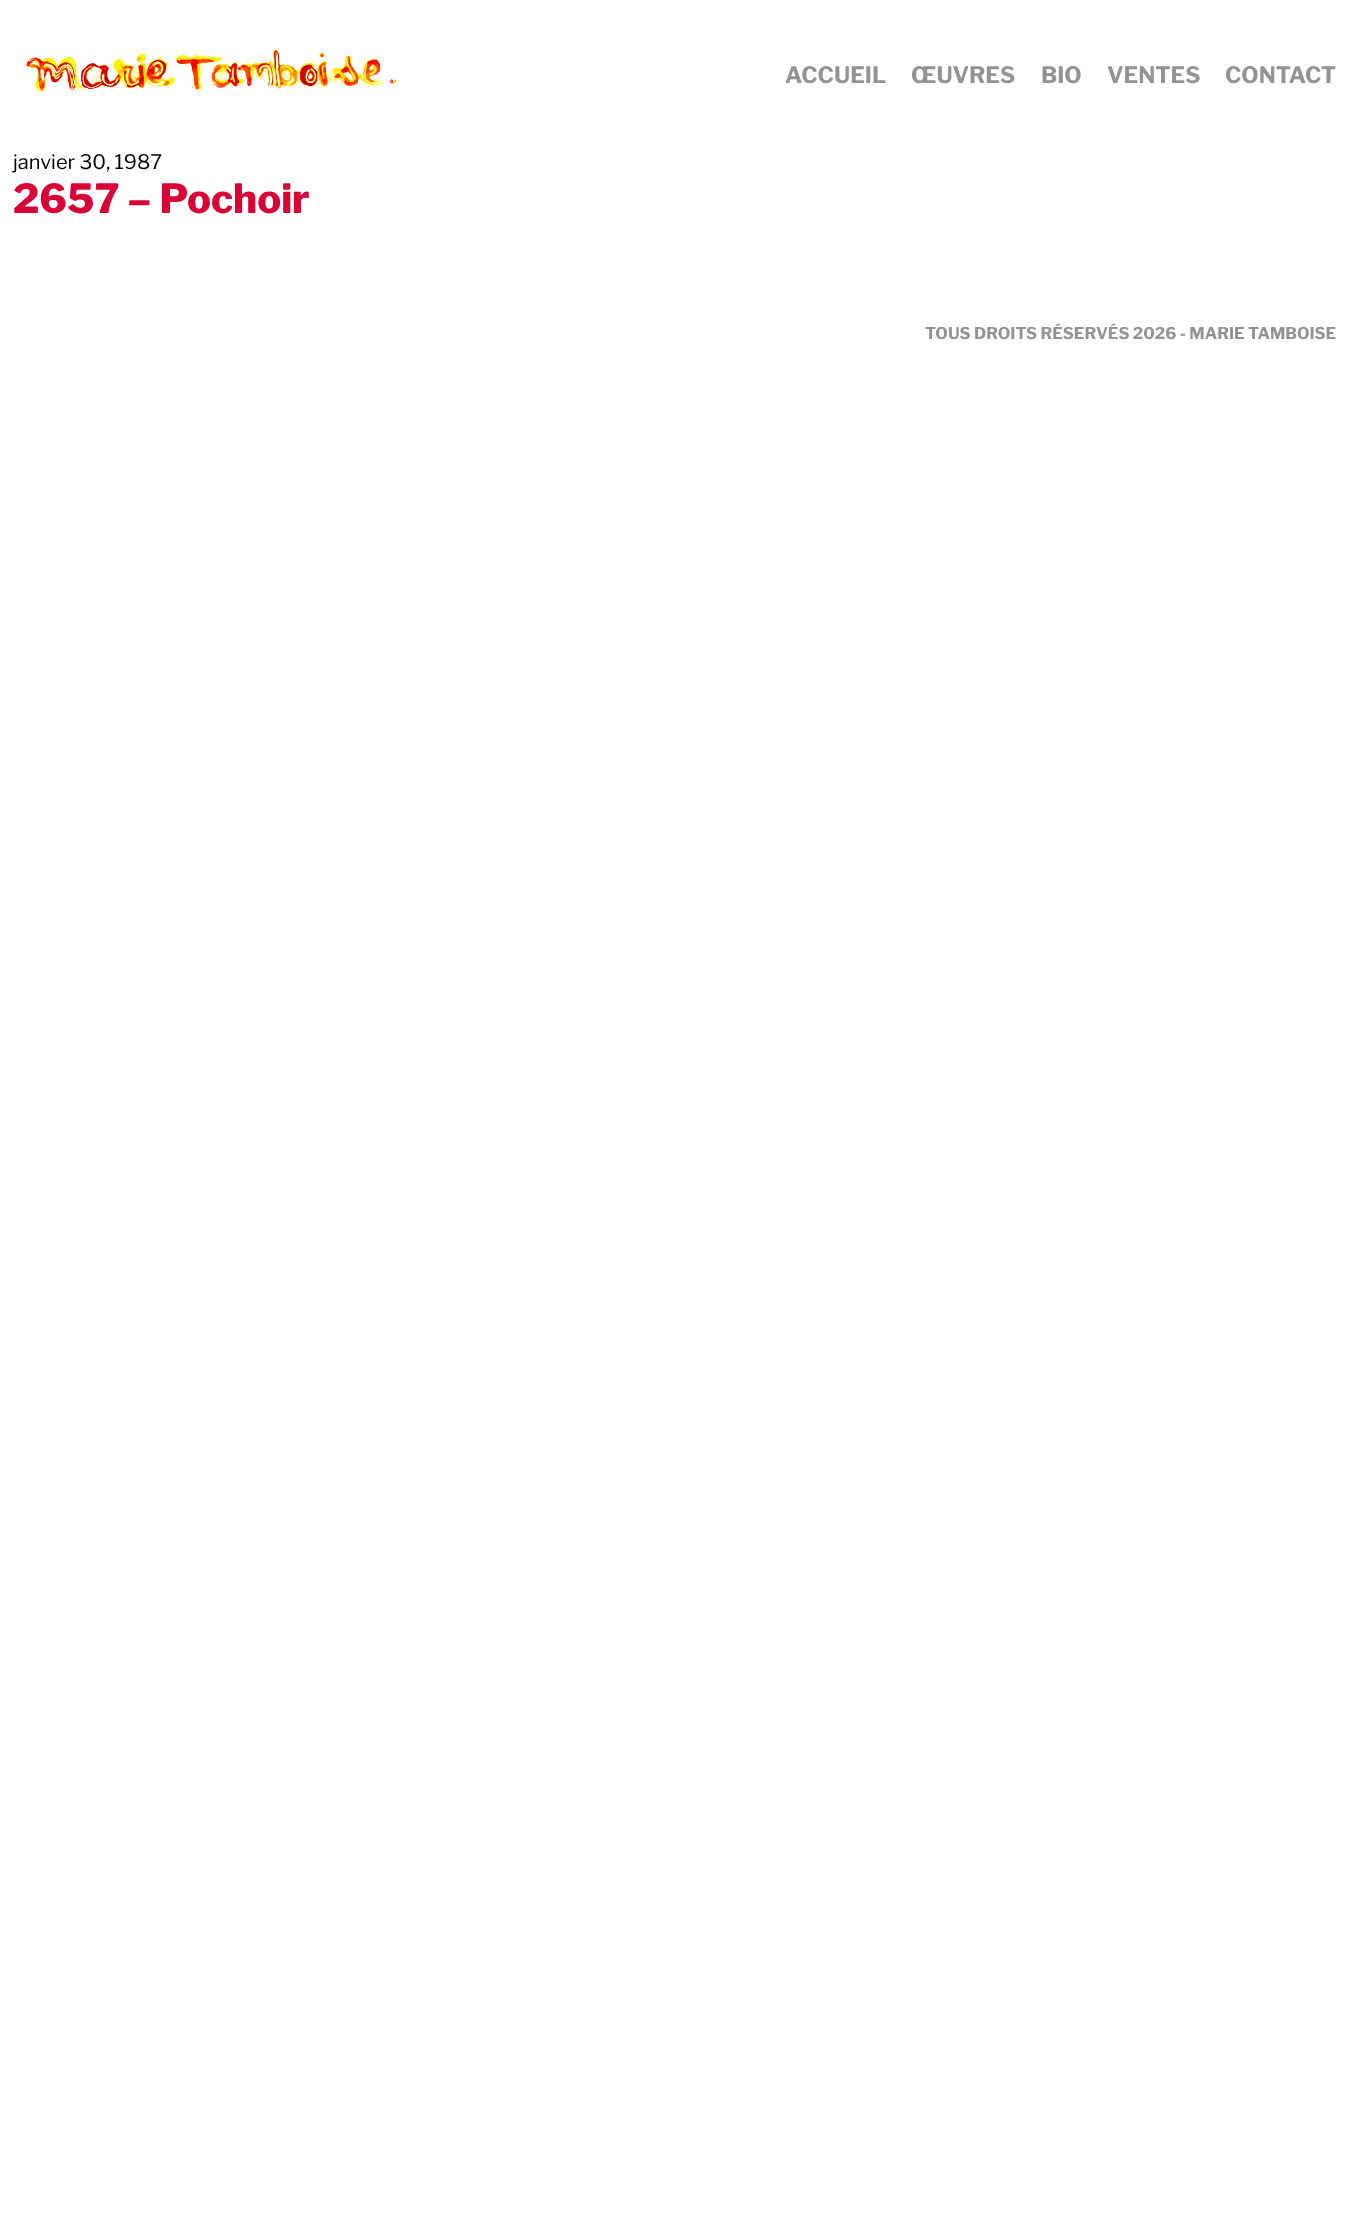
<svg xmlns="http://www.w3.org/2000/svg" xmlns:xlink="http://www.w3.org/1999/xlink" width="1361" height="2235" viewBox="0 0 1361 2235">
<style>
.cls-1{font:bold 22.5px Libre Franklin;fill:#929292}
.cls-2{font:20px Libre Franklin;fill:#000000}
.cls-3{font:800 40px Libre Franklin;fill:#d90236}
.cls-4{font:bold 16.25px Libre Franklin;fill:#929292}
</style>
<rect width="100%" height="100%" fill="#ffffff"/>
<image xlink:href="image0.png" x="26" y="50" width="374" height="42"/>
<text class="cls-1" x="785" y="83">ACCUEIL</text>
<text class="cls-1" x="911" y="83">ŒUVRES</text>
<text class="cls-1" x="1041" y="83">BIO</text>
<text class="cls-1" x="1107" y="83">VENTES</text>
<text class="cls-1" x="1225" y="83">CONTACT</text>
<text class="cls-2" x="13" y="169">janvier 30, 1987</text>
<text class="cls-3" x="13" y="213">2657 – Pochoir</text>
<text class="cls-4" x="925" y="339">TOUS DROITS RÉSERVÉS 2026 - MARIE TAMBOISE</text>
</svg>
